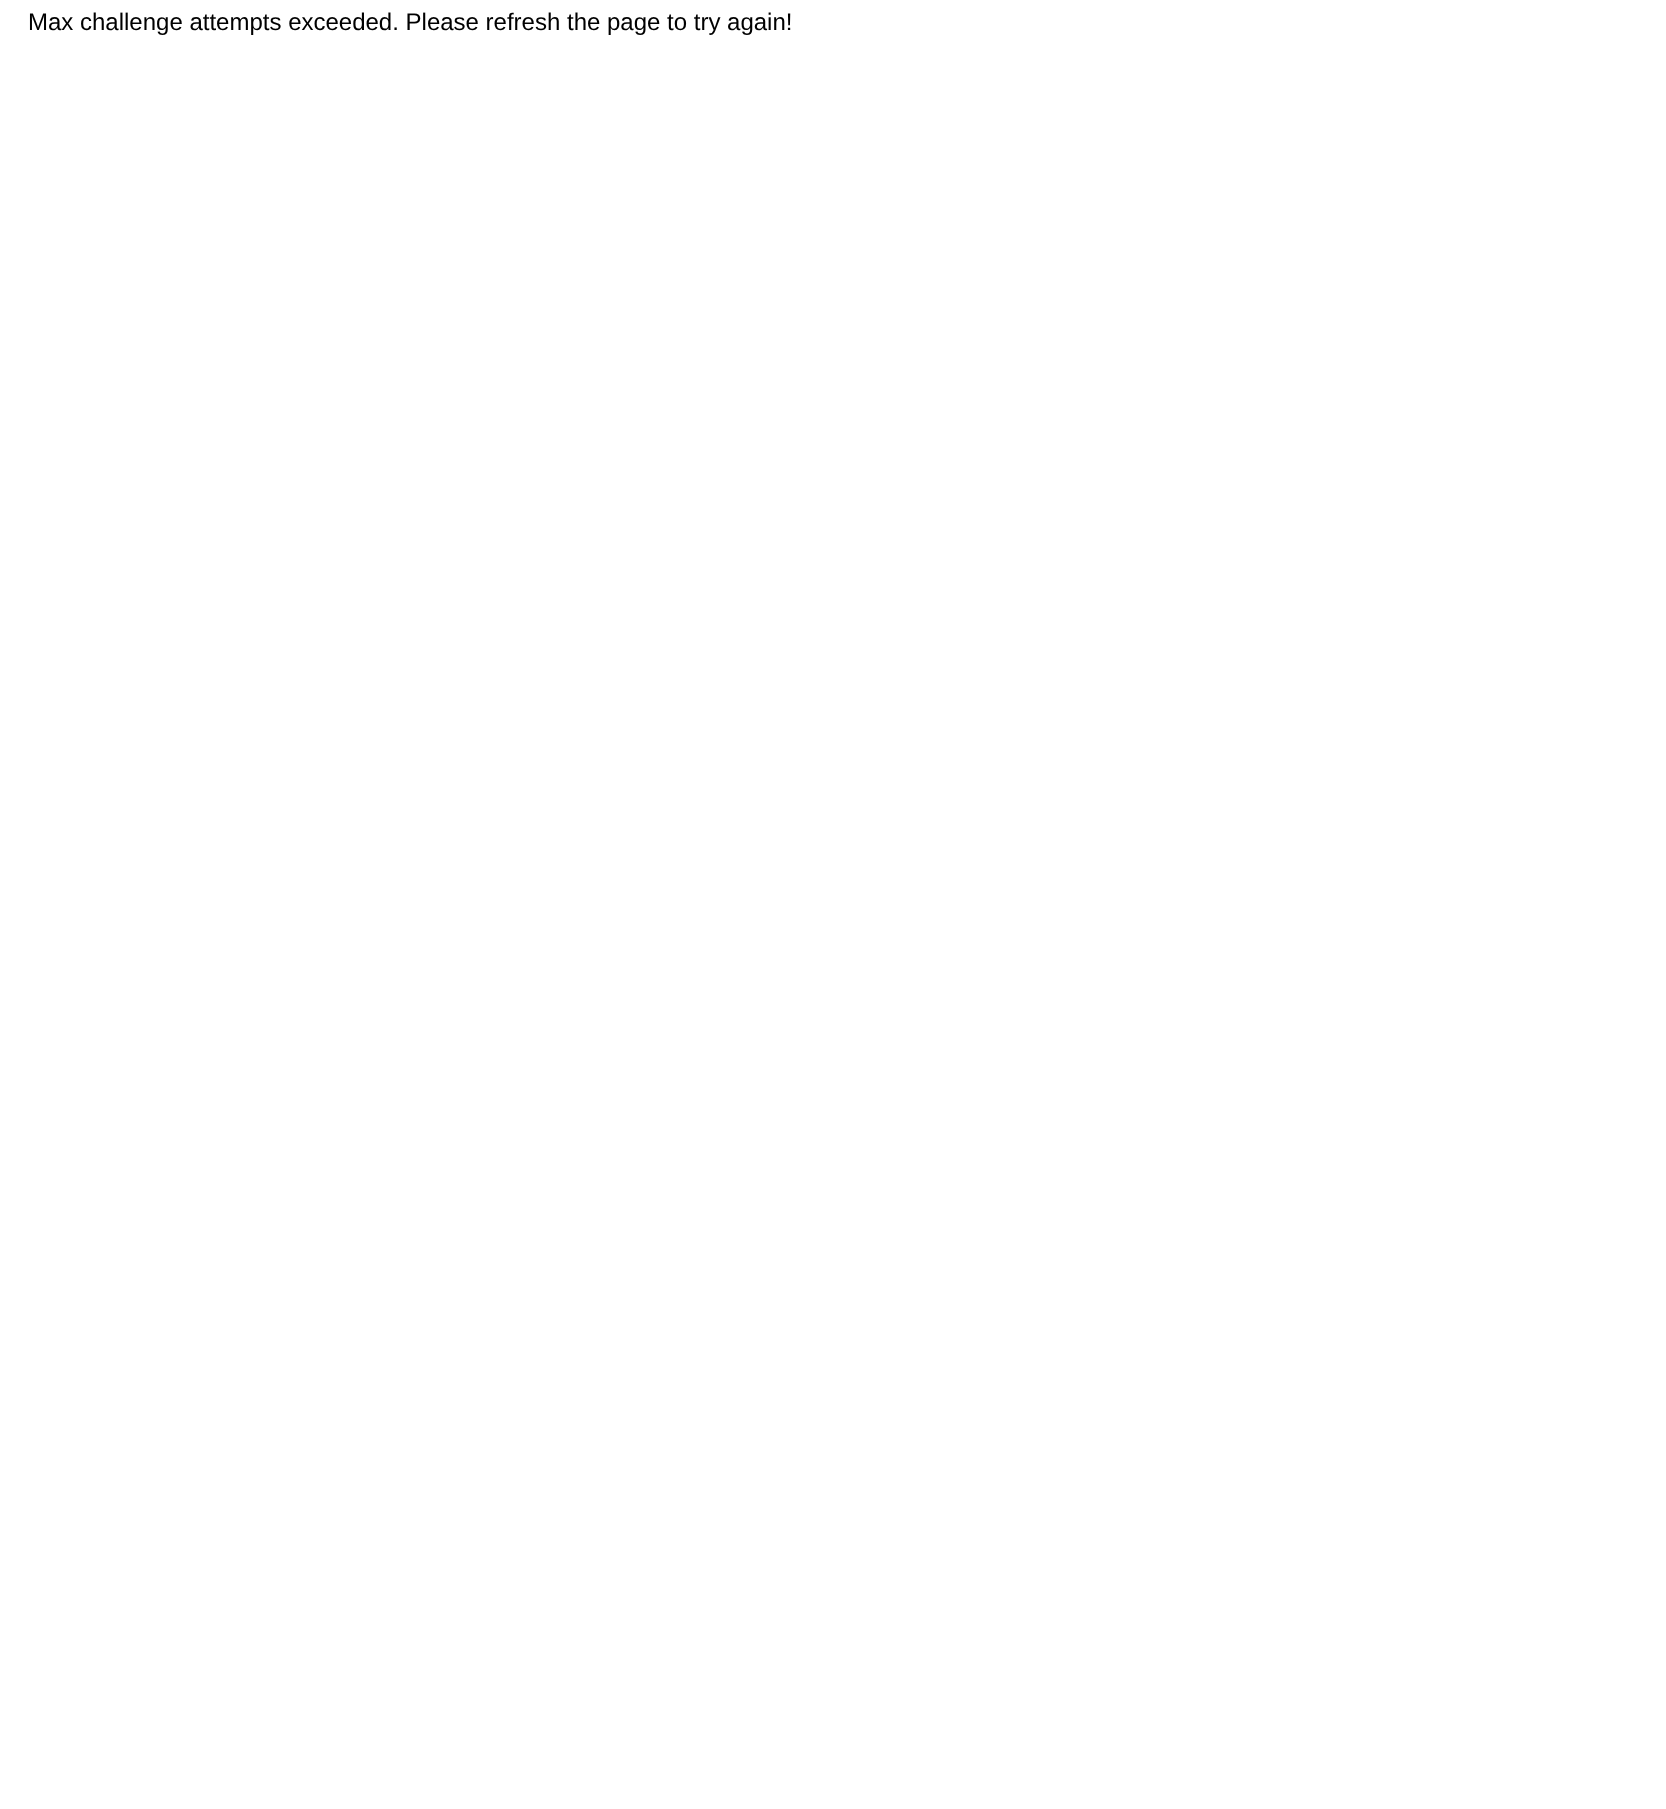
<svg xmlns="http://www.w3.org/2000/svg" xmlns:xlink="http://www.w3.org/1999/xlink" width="1666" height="1809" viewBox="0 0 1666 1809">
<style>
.cls-1{font:24px Liberation Sans;fill:#000000}
</style>
<rect width="100%" height="100%" fill="#ffffff"/>
<text class="cls-1" x="28" y="30">Max challenge attempts exceeded. Please refresh the page to try again!</text>
</svg>
